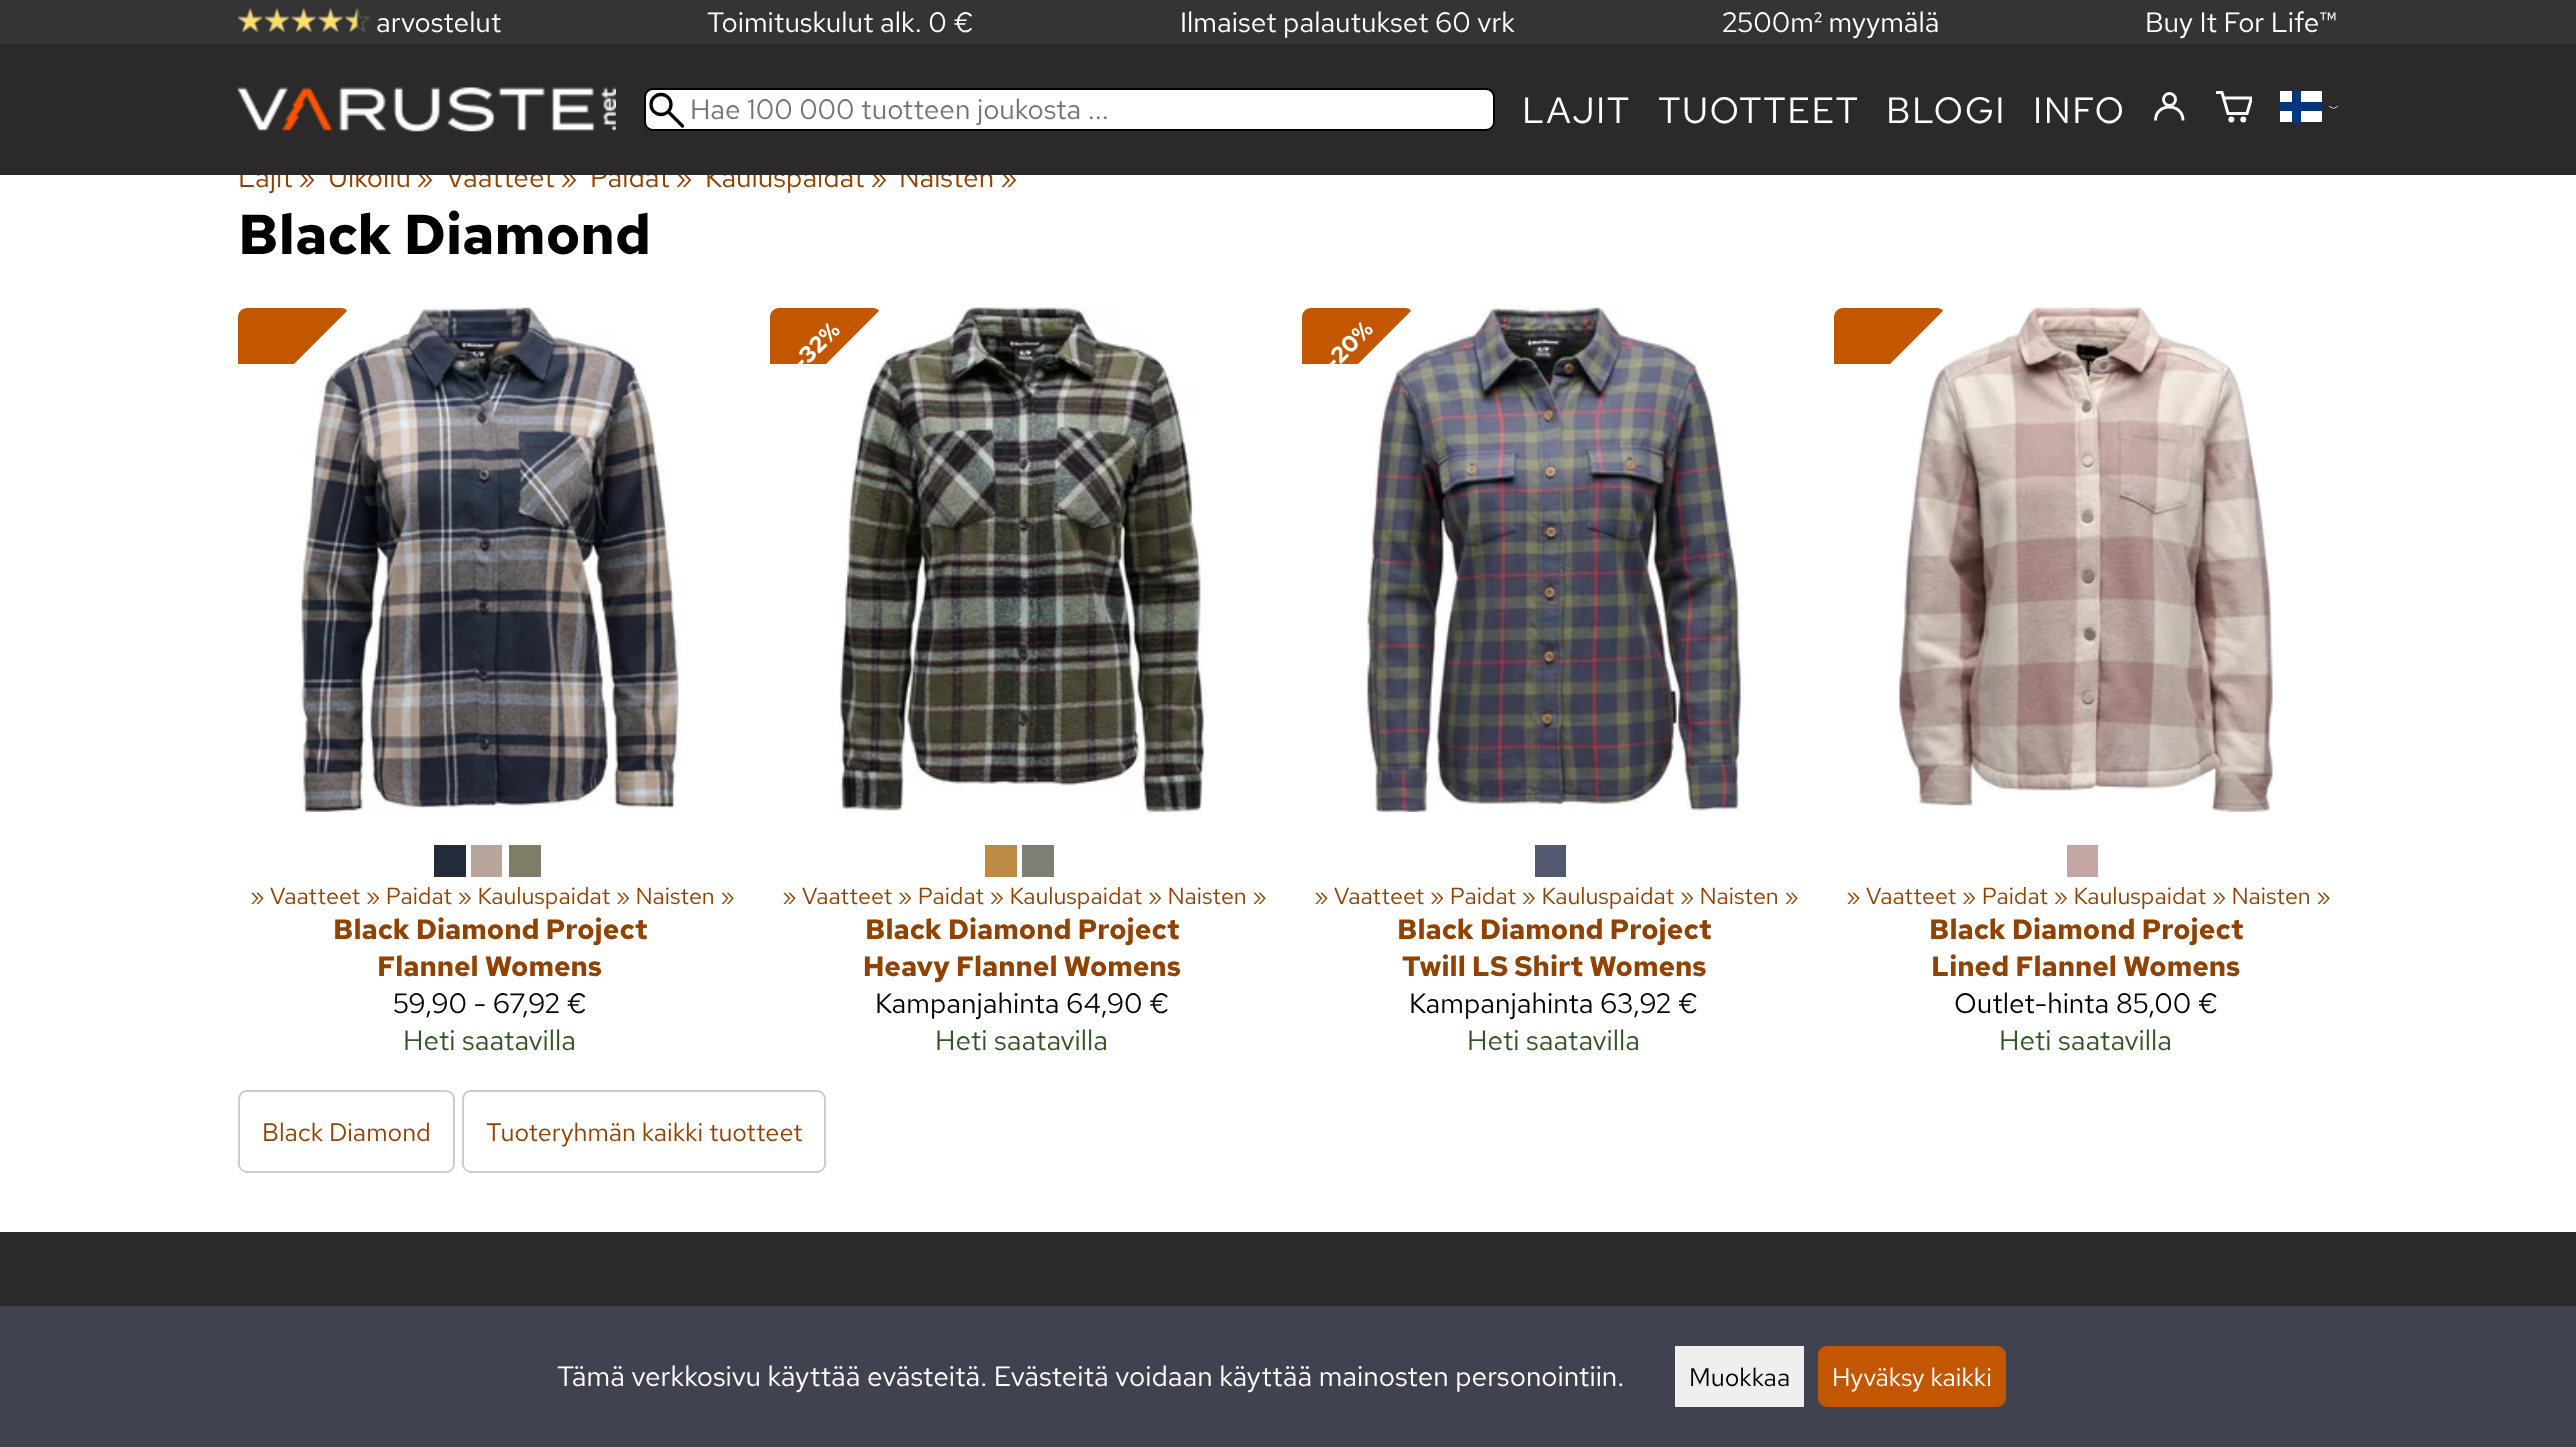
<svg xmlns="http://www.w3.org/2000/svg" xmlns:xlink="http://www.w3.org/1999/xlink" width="2576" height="1447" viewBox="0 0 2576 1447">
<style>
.cls-1{font:28px Red Hat Text;fill:#ffffff}
.cls-2{font:28px Red Hat Text;fill:#914100}
.cls-3{font:28px Red Hat Text;fill:#757575}
.cls-4{font:36.5px Red Hat Text;letter-spacing:1.5px;fill:#ffffff}
.cls-5{font:bold 56px Red Hat Text;fill:#000000}
.cls-6{font:23.3px Red Hat Text;fill:#914100}
.cls-7{font:bold 28px Red Hat Text;fill:#914100}
.cls-8{font:28px Red Hat Text;fill:#000000}
.cls-9{font:28px Red Hat Text;fill:#335525}
.cls-10{font:bold 23px Red Hat Text;fill:#ffffff}
.cls-11{font:25.25px Red Hat Text;fill:#914100}
.cls-12{font:25.25px Red Hat Text;fill:#000000}
.cls-13{font:25.25px Red Hat Text;fill:#ffffff}
</style>
<defs>
<clipPath id="clip1"><rect x="2216" y="91" width="36" height="32"/></clipPath>
</defs>
<rect width="100%" height="100%" fill="#ffffff"/>
<rect fill="#343434" x="0" y="0" width="2576" height="44"/>
<image xlink:href="image0.png" x="238" y="8" width="132" height="24"/>
<image xlink:href="image2.png" x="298" y="307" width="384" height="505"/>
<path fill="#c25700" d="M247 308C242 308 238 312 238 317V364H294L347 311C346 309 344 308 341 308Z"/>
<rect fill="#242b3b" x="434" y="845" width="32" height="32"/>
<rect fill="#b7a59b" x="471" y="845" width="31" height="32"/>
<rect fill="#7f7d68" x="509" y="845" width="32" height="32"/>
<image xlink:href="image3.png" x="837" y="307" width="370" height="505"/>
<path fill="#c25700" d="M779 308C774 308 770 312 770 317V364H826L879 311C878 309 876 308 873 308Z"/>
<rect fill="#bb8a45" x="985" y="845" width="32" height="32"/>
<rect fill="#7d7f72" x="1022" y="845" width="32" height="32"/>
<image xlink:href="image4.png" x="1363" y="307" width="382" height="505"/>
<path fill="#c25700" d="M1311 308C1306 308 1302 312 1302 317V364H1358L1411 311C1410 309 1408 308 1405 308Z"/>
<rect fill="#53596e" x="1535" y="845" width="31" height="32"/>
<image xlink:href="image5.png" x="1899" y="307" width="374" height="505"/>
<path fill="#c25700" d="M1843 308C1838 308 1834 312 1834 317V364H1890L1943 311C1942 309 1940 308 1937 308Z"/>
<rect fill="#c4a7a2" x="2067" y="845" width="31" height="32"/>
<rect fill="none" stroke="#cccccc" stroke-width="2" x="239" y="1091" width="215" height="81" rx="8"/>
<rect fill="none" stroke="#cccccc" stroke-width="2" x="463" y="1091" width="362" height="81" rx="8"/>
<rect fill="#2b292a" x="0" y="1232" width="2576" height="74"/>
<rect fill="#41424f" x="0" y="1306" width="2576" height="141"/>
<rect fill="#efefef" x="1675" y="1346" width="129" height="61"/>
<rect fill="#c25700" x="1818" y="1346" width="188" height="61" rx="9"/>
<text class="cls-1" x="376" y="32">arvostelut</text>
<text class="cls-1" x="707" y="32">Toimituskulut alk. 0 €</text>
<text class="cls-1" x="1180" y="32">Ilmaiset palautukset 60 vrk</text>
<text class="cls-1" x="1722" y="32">2500m² myymälä</text>
<text class="cls-1" x="2145" y="32">Buy It For Life™</text>
<text class="cls-2" x="238" y="187">Lajit</text>
<text class="cls-2" x="298" y="187">»</text>
<text class="cls-2" x="328" y="187">Ulkoilu</text>
<text class="cls-2" x="416" y="187">»</text>
<text class="cls-2" x="446" y="187">Vaatteet</text>
<text class="cls-2" x="560" y="187">»</text>
<text class="cls-2" x="590" y="187">Paidat</text>
<text class="cls-2" x="675" y="187">»</text>
<text class="cls-2" x="705" y="187">Kauluspaidat</text>
<text class="cls-2" x="870" y="187">»</text>
<text class="cls-2" x="899" y="187">Naisten</text>
<text class="cls-2" x="1000" y="187">»</text>
<rect fill="#2b292a" x="0" y="44" width="2576" height="131"/>
<rect fill="#ffffff" stroke="#000000" stroke-width="2" x="645" y="89" width="849" height="41" rx="8"/>
<path fill="none" stroke="#000000" stroke-width="3.3" stroke-linecap="round" d="M682.5 126L668.5 112"/>
<circle fill="none" stroke="#000000" stroke-width="3.3" cx="661" cy="104.5" r="10"/>
<text class="cls-3" x="690" y="119">Hae 100 000 tuotteen joukosta ...</text>
<path fill="none" stroke="#fafafa" stroke-width="0.8" stroke-linecap="round" d="M2329.5 106.5L2333.5 108.5L2337.5 106.5"/>
<rect fill="#ffffff" x="2280" y="91" width="42" height="31"/>
<rect fill="#003580" x="2280" y="102" width="42" height="9"/>
<rect fill="#003580" x="2292" y="91" width="9" height="32"/>
<circle fill="none" stroke="#fafafa" stroke-width="3" cx="2243.3" cy="119.5" r="1.5"/>
<circle fill="none" stroke="#fafafa" stroke-width="3" cx="2231.4" cy="119.5" r="1.5"/>
<g clip-path="url(#clip1)">
<path fill="none" stroke="#fafafa" stroke-width="3" stroke-linecap="round" d="M2223.5 98H2251.5L2247 113.5H2228L2222 92.5H2217"/>
</g>
<circle fill="none" stroke="#fafafa" stroke-width="2.9" cx="2169.5" cy="99.5" r="6"/>
<path fill="none" stroke="#fafafa" stroke-width="2.9" d="M2155.5 120.5C2155.5 102.5 2183 102.5 2183 120.5"/>
<text class="cls-4" x="2033" y="123">INFO</text>
<text class="cls-4" x="1886" y="123">BLOGI</text>
<text class="cls-4" x="1658" y="123">TUOTTEET</text>
<text class="cls-4" x="1522" y="123">LAJIT</text>
<image xlink:href="image1.png" x="238" y="87" width="378" height="45"/>
<text class="cls-5" x="238" y="254">Black Diamond</text>
<text class="cls-6" x="250" y="904">» Vaatteet » Paidat » Kauluspaidat » Naisten »</text>
<text class="cls-7" x="333" y="939">Black Diamond Project</text>
<text class="cls-7" x="377" y="976">Flannel Womens</text>
<text class="cls-8" x="393" y="1013">59,90 - 67,92 €</text>
<text class="cls-9" x="403" y="1050">Heti saatavilla</text>
<text class="cls-10" x="801" y="372" transform="rotate(-45 801 372)">-32%</text>
<text class="cls-6" x="782" y="904">» Vaatteet » Paidat » Kauluspaidat » Naisten »</text>
<text class="cls-7" x="865" y="939">Black Diamond Project</text>
<text class="cls-7" x="863" y="976">Heavy Flannel Womens</text>
<text class="cls-8" x="875" y="1013">Kampanjahinta 64,90 €</text>
<text class="cls-9" x="935" y="1050">Heti saatavilla</text>
<text class="cls-10" x="1333" y="372" transform="rotate(-45 1333 372)">-20%</text>
<text class="cls-6" x="1314" y="904">» Vaatteet » Paidat » Kauluspaidat » Naisten »</text>
<text class="cls-7" x="1397" y="939">Black Diamond Project</text>
<text class="cls-7" x="1402" y="976">Twill LS Shirt Womens</text>
<text class="cls-8" x="1409" y="1013">Kampanjahinta 63,92 €</text>
<text class="cls-9" x="1467" y="1050">Heti saatavilla</text>
<text class="cls-6" x="1846" y="904">» Vaatteet » Paidat » Kauluspaidat » Naisten »</text>
<text class="cls-7" x="1929" y="939">Black Diamond Project</text>
<text class="cls-7" x="1931" y="976">Lined Flannel Womens</text>
<text class="cls-8" x="1954" y="1013">Outlet-hinta 85,00 €</text>
<text class="cls-9" x="1999" y="1050">Heti saatavilla</text>
<text class="cls-11" x="262" y="1141">Black Diamond</text>
<text class="cls-11" x="486" y="1141">Tuoteryhmän kaikki tuotteet</text>
<text class="cls-1" x="557" y="1386">Tämä verkkosivu käyttää evästeitä. Evästeitä voidaan käyttää mainosten personointiin.</text>
<text class="cls-12" x="1689" y="1386">Muokkaa</text>
<text class="cls-13" x="1832" y="1386">Hyväksy kaikki</text>
</svg>
